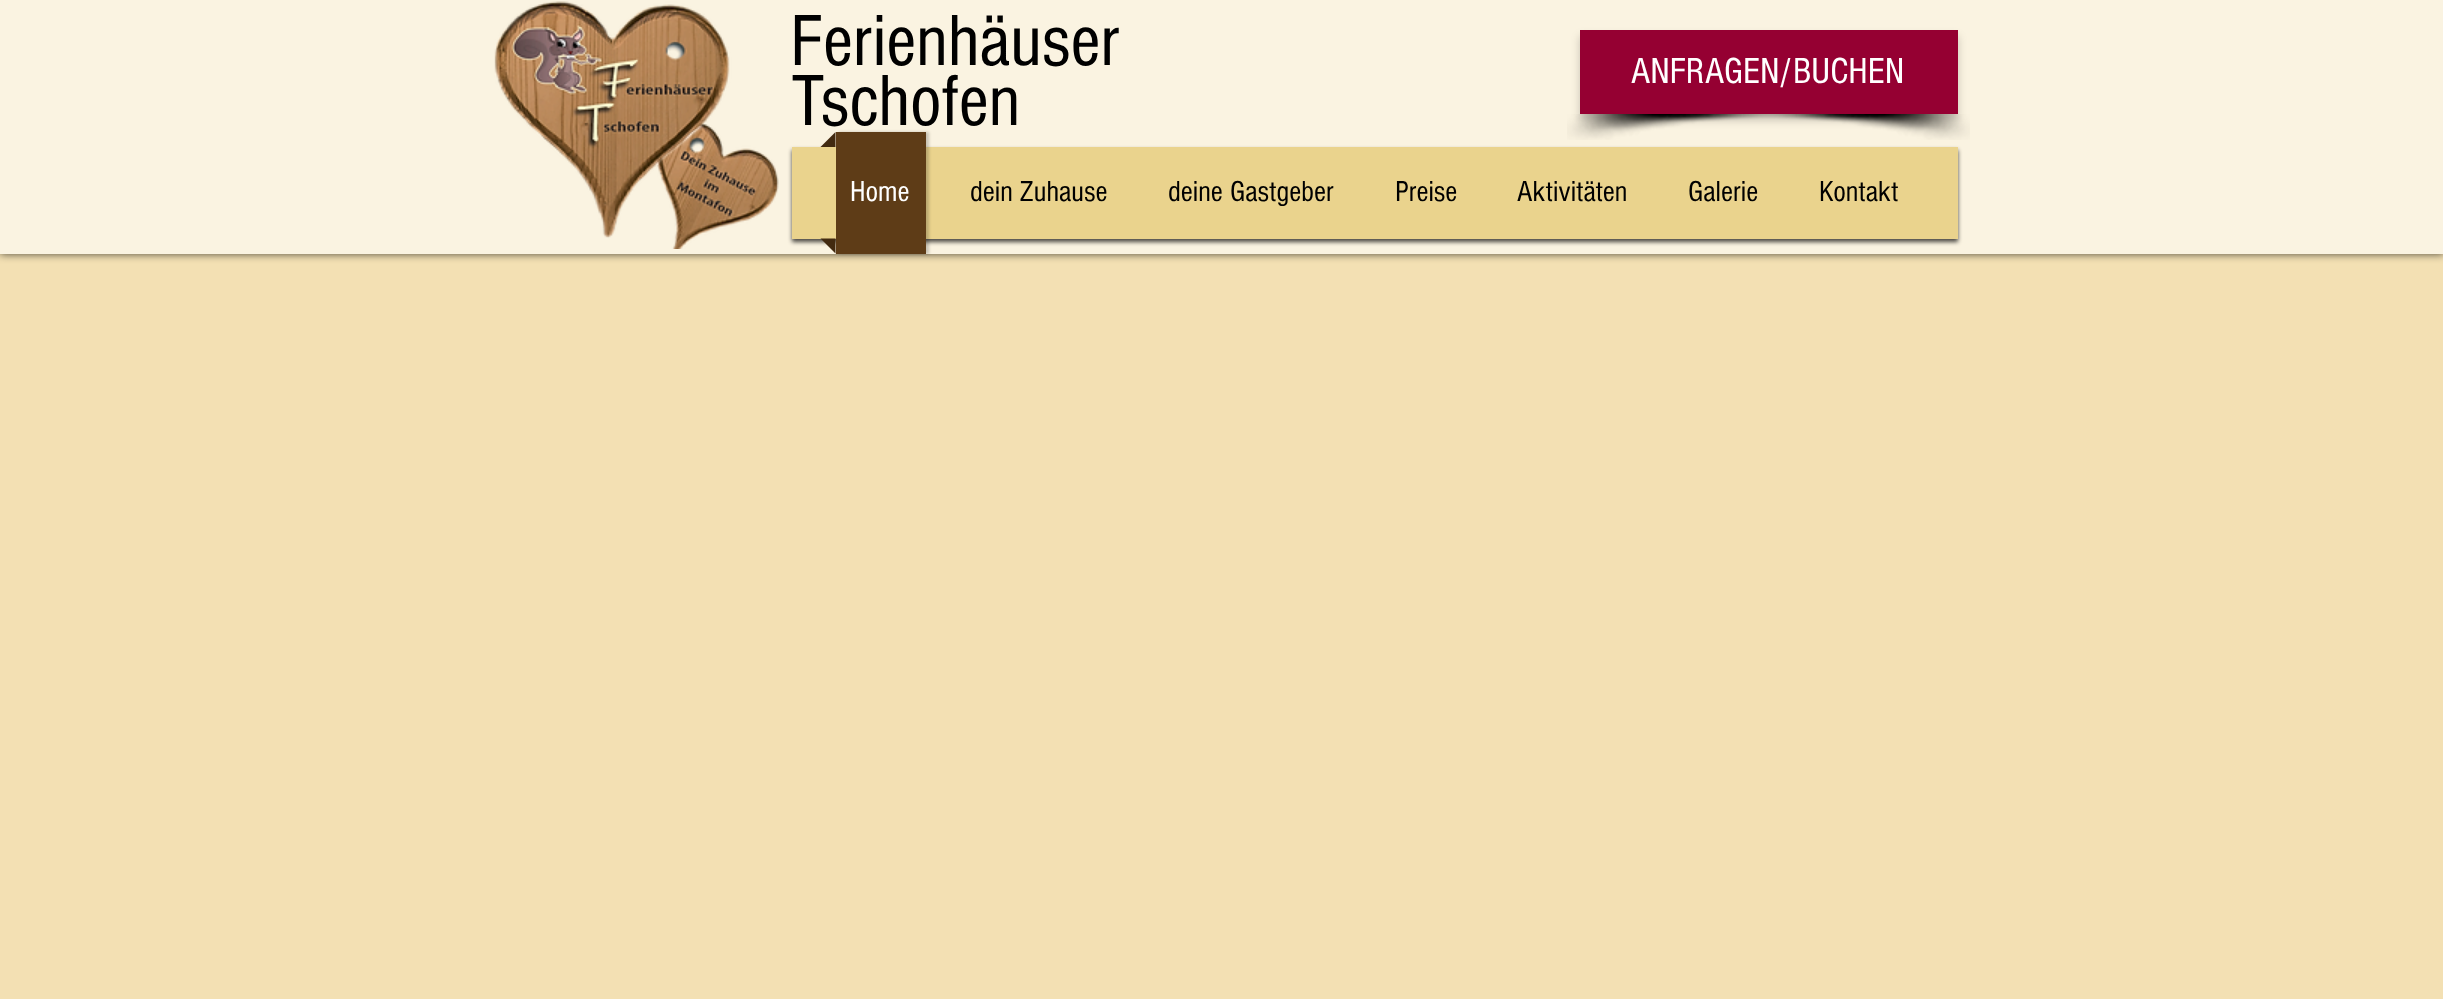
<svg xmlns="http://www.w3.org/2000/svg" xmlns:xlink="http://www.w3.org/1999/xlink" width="2443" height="999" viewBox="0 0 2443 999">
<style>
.cls-1{font:75px 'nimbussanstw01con';fill:#000000}
.cls-2{font:37.5px 'nimbussanstw01con';fill:#ffffff}
.cls-3{font:30px 'nimbussanstw01con';fill:#ffffff}
.cls-4{font:30px 'nimbussanstw01con';fill:#000000}
</style>
<defs>
<clipPath id="clip1"><path d="M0 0H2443V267H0ZM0 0H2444V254H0Z" clip-rule="evenodd"/></clipPath>
</defs>
<rect width="100%" height="100%" fill="#f3e0b3"/>
<g clip-path="url(#clip1)">
<rect fill="#000000" fill-opacity="0.7" filter="blur(4px)" x="0" y="0" width="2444" height="254"/>
</g>
<rect fill="#ffffff" fill-opacity="0.6" x="0" y="0" width="2443" height="254"/>
<image xlink:href="image0.png" x="494" y="1" width="285" height="248"/>
<image xlink:href="image1.png" x="1567" y="114" width="230" height="26"/>
<image xlink:href="image2.png" x="1743" y="114" width="227" height="26"/>
<rect fill="#000000" fill-opacity="0.2" filter="blur(4.5px)" x="1580" y="36" width="378" height="84"/>
<rect fill="#950032" x="1580" y="30" width="378" height="84"/>
<rect fill="#000000" fill-opacity="0.7" filter="blur(2px)" x="792" y="150" width="1166" height="92"/>
<rect fill="#ead38d" x="792" y="147" width="1166" height="92"/>
<rect fill="#000000" fill-opacity="0.2" filter="blur(1.5px)" x="839" y="132" width="90" height="122"/>
<path fill="#422a10" d="M835.5 147H820.5L835.5 132Z"/>
<rect fill="#5e3c17" x="836" y="132" width="90" height="122"/>
<path fill="#422a10" d="M820.5 238.5H835.5V253.5Z"/>
<text class="cls-1"><tspan x="791" y="65">Ferienhäuser</tspan><tspan x="791" y="125">Tschofen</tspan></text>
<text class="cls-2" x="1631" y="83">ANFRAGEN/BUCHEN</text>
<text class="cls-3" x="850" y="201">Home</text>
<text class="cls-4" x="970" y="201">dein Zuhause</text>
<text class="cls-4" x="1168" y="201">deine Gastgeber</text>
<text class="cls-4" x="1395" y="201">Preise</text>
<text class="cls-4" x="1517" y="201">Aktivitäten</text>
<text class="cls-4" x="1688" y="201">Galerie</text>
<text class="cls-4" x="1819" y="201">Kontakt</text>
</svg>
